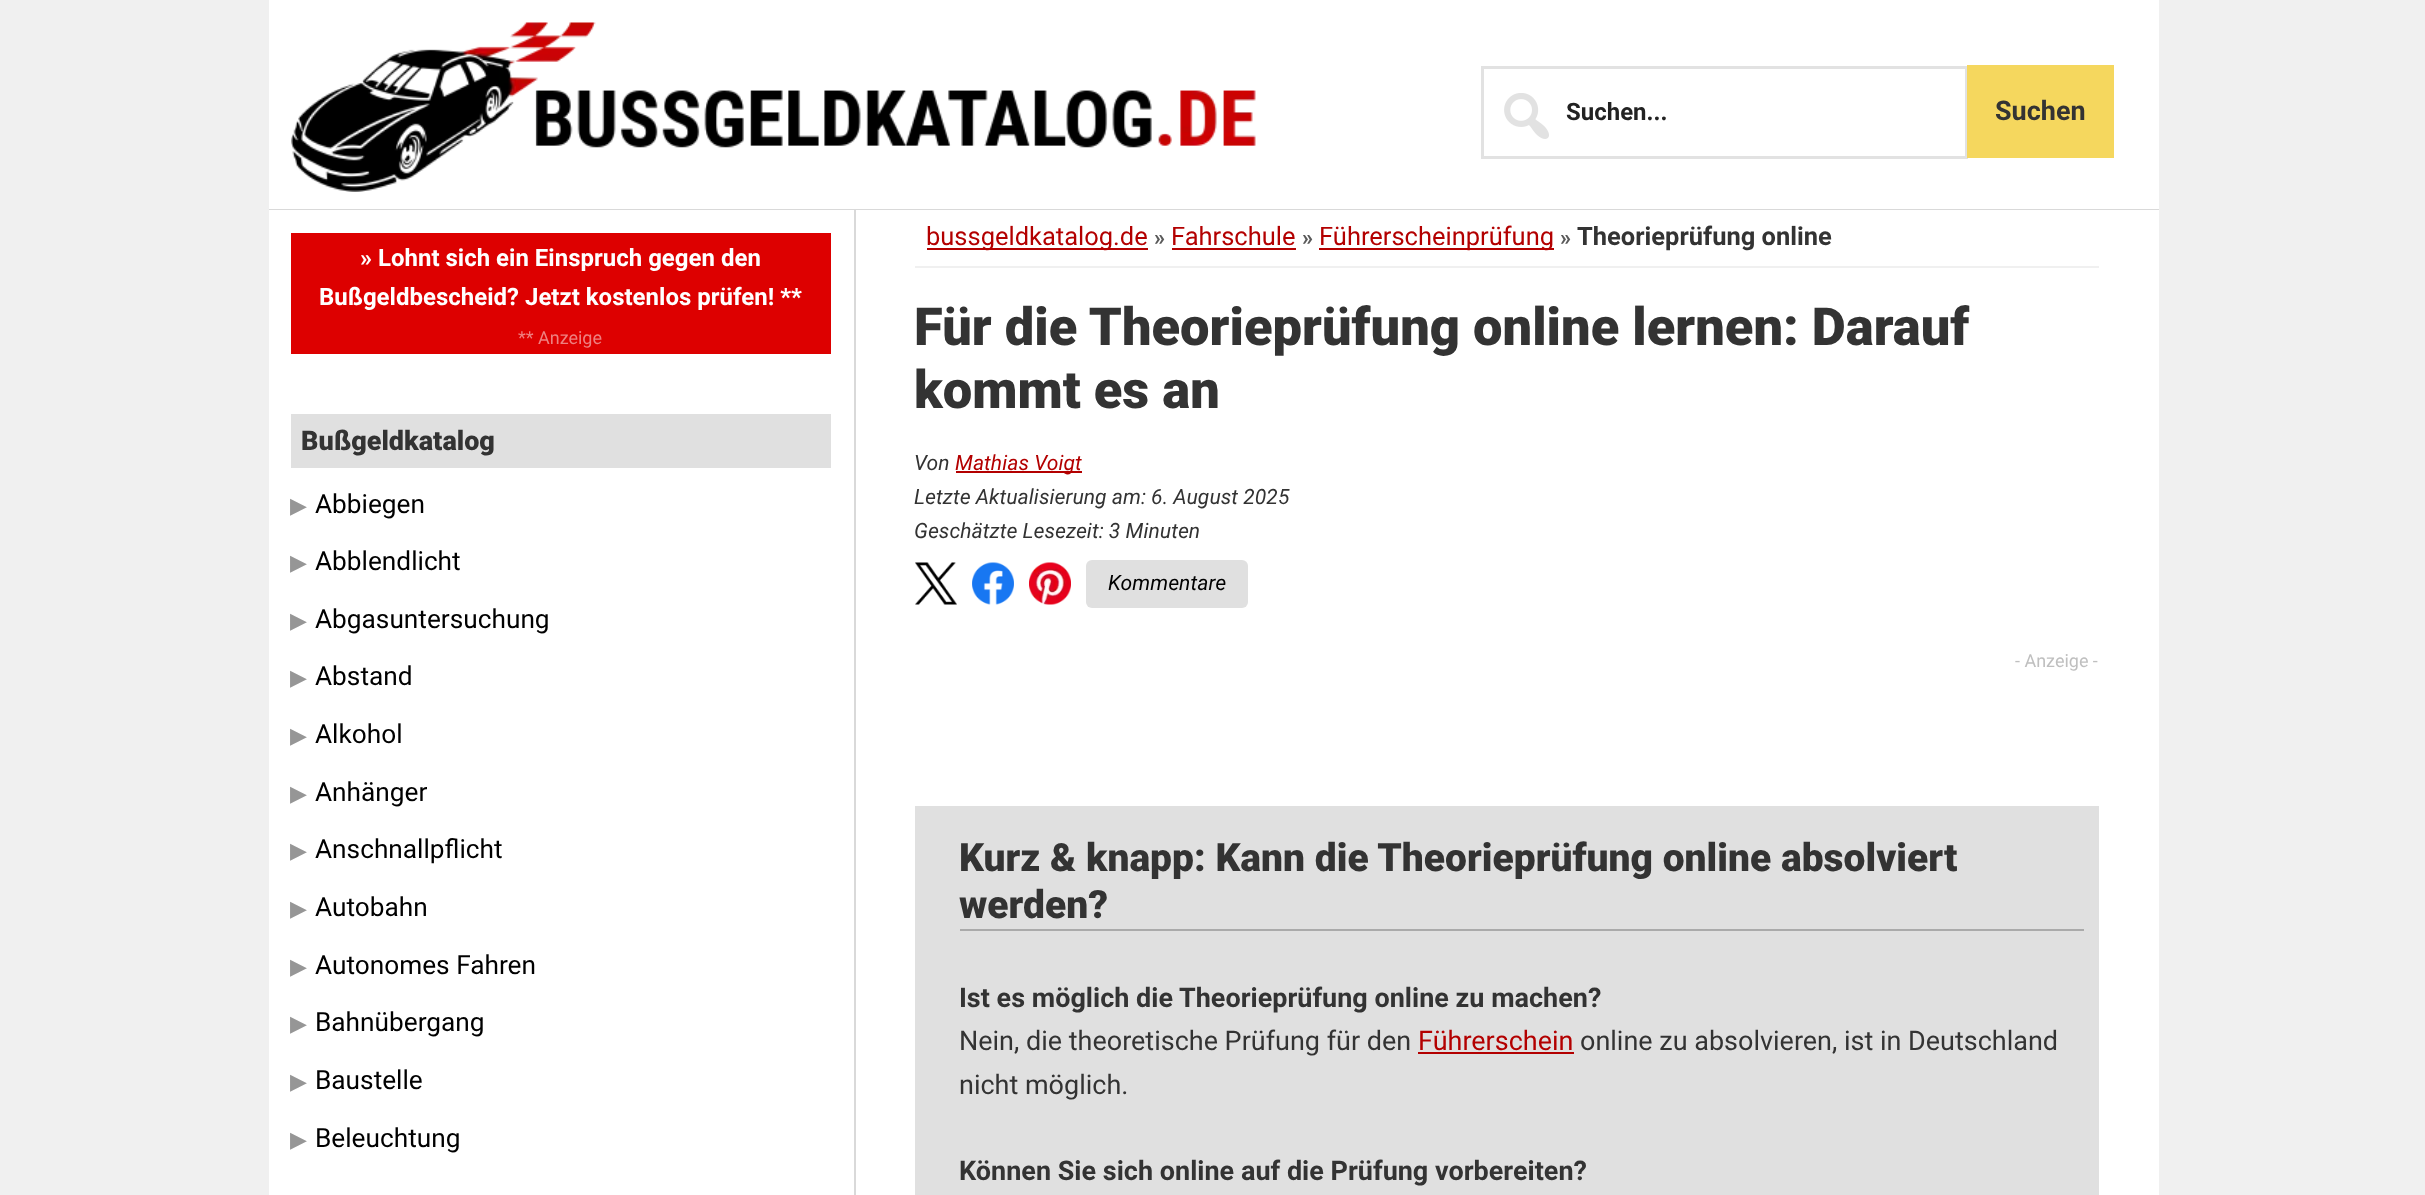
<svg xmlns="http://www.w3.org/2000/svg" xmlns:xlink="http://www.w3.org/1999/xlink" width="2425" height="1195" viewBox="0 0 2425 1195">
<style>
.cls-1{font:bold 24px Roboto;fill:#222222}
.cls-2{font:bold 27px Roboto;fill:#333333}
.cls-3{font:bold 24px Roboto;fill:#ffffff}
.cls-4{font:18px Roboto;fill:#ee8080}
.cls-5{font:900 27px Roboto;fill:#333333}
.cls-6{font:22px DejaVu Sans;fill:#969696}
.cls-7{font:26.25px Roboto;fill:#000000}
.cls-8{font:25.5px Roboto;fill:#b30000}
.cls-9{font:bold 22px Roboto;fill:#5a5a5a}
.cls-10{font:bold 25.5px Roboto;fill:#333333}
.cls-11{font:900 52.5px Roboto;fill:#333333}
.cls-12{font:italic 21px Roboto;fill:#333333}
.cls-13{font:italic 21px Roboto;fill:#b30000}
.cls-14{font:italic 21px Roboto;fill:#000000}
.cls-15{font:18px Roboto;fill:#bfbfbf}
.cls-16{font:900 39px Roboto;fill:#333333}
.cls-17{font:27px Roboto;fill:#333333}
.cls-18{font:27px Roboto;fill:#b30000}
</style>
<rect width="100%" height="100%" fill="#f0f0f0"/>
<rect fill="#ffffff" x="269" y="0" width="1890" height="209"/>
<rect fill="#d9d9d9" x="269" y="209" width="1890" height="1"/>
<image xlink:href="image0.png" x="291" y="22" width="965" height="170"/>
<rect fill="none" stroke="#e2e2e2" stroke-width="3" x="1482.5" y="67.5" width="484" height="90"/>
<image xlink:href="image1.png" x="1504" y="93" width="45" height="46"/>
<rect fill="#f5d75e" x="1967" y="65" width="147" height="93"/>
<rect fill="#ffffff" x="269" y="210" width="1890" height="985"/>
<rect fill="#dd0000" x="291" y="233" width="540" height="121"/>
<rect fill="#e0e0e0" x="291" y="414" width="540" height="54"/>
<rect fill="#d9d9d9" x="854" y="210" width="2" height="985"/>
<rect fill="#f0f0f0" x="915" y="266" width="1184" height="2"/>
<rect fill="#b30000" x="927" y="248" width="221" height="2"/>
<rect fill="#b30000" x="1172" y="248" width="124" height="2"/>
<rect fill="#b30000" x="1319" y="248" width="235" height="2"/>
<rect fill="#b30000" x="956" y="471" width="126" height="2"/>
<image xlink:href="image2.png" x="915" y="562" width="42" height="43"/>
<image xlink:href="image3.png" x="972" y="562" width="42" height="43"/>
<image xlink:href="image4.png" x="1029" y="562" width="42" height="43"/>
<rect fill="#e0e0e0" x="1086" y="560" width="162" height="48" rx="6"/>
<rect fill="#e0e0e0" x="915" y="806" width="1184" height="389"/>
<rect fill="#aaaaaa" x="960" y="929" width="1124" height="2"/>
<rect fill="#b30000" x="1418" y="1052" width="156" height="2"/>
<text class="cls-1" x="1566" y="120">Suchen...</text>
<text class="cls-2" x="1995" y="120">Suchen</text>
<text class="cls-3" x="360" y="266">» Lohnt sich ein Einspruch gegen den</text>
<text class="cls-3" x="319" y="305">Bußgeldbescheid? Jetzt kostenlos prüfen! **</text>
<text class="cls-4" x="518" y="344">** Anzeige</text>
<text class="cls-5" x="301" y="450">Bußgeldkatalog</text>
<text class="cls-6" x="290" y="513">▶</text>
<text class="cls-7" x="315" y="513">Abbiegen</text>
<text class="cls-6" x="290" y="570">▶</text>
<text class="cls-7" x="315" y="570">Abblendlicht</text>
<text class="cls-6" x="290" y="628">▶</text>
<text class="cls-7" x="315" y="628">Abgasuntersuchung</text>
<text class="cls-6" x="290" y="685">▶</text>
<text class="cls-7" x="315" y="685">Abstand</text>
<text class="cls-6" x="290" y="743">▶</text>
<text class="cls-7" x="315" y="743">Alkohol</text>
<text class="cls-6" x="290" y="801">▶</text>
<text class="cls-7" x="315" y="801">Anhänger</text>
<text class="cls-6" x="290" y="858">▶</text>
<text class="cls-7" x="315" y="858">Anschnallpflicht</text>
<text class="cls-6" x="290" y="916">▶</text>
<text class="cls-7" x="315" y="916">Autobahn</text>
<text class="cls-6" x="290" y="974">▶</text>
<text class="cls-7" x="315" y="974">Autonomes Fahren</text>
<text class="cls-6" x="290" y="1031">▶</text>
<text class="cls-7" x="315" y="1031">Bahnübergang</text>
<text class="cls-6" x="290" y="1089">▶</text>
<text class="cls-7" x="315" y="1089">Baustelle</text>
<text class="cls-6" x="290" y="1147">▶</text>
<text class="cls-7" x="315" y="1147">Beleuchtung</text>
<text class="cls-8" x="926" y="245">bussgeldkatalog.de</text>
<text class="cls-9" x="1154" y="245">»</text>
<text class="cls-8" x="1171" y="245">Fahrschule</text>
<text class="cls-9" x="1302" y="245">»</text>
<text class="cls-8" x="1319" y="245">Führerscheinprüfung</text>
<text class="cls-9" x="1560" y="245">»</text>
<text class="cls-10" x="1577" y="245">Theorieprüfung online</text>
<text class="cls-11"><tspan x="914" y="345">Für die Theorieprüfung online lernen: Darauf</tspan><tspan x="914" y="408">kommt es an</tspan></text>
<text class="cls-12" x="914" y="470">Von</text>
<text class="cls-13" x="955" y="470">Mathias Voigt</text>
<text class="cls-12"><tspan x="914" y="504">Letzte Aktualisierung am: 6. August 2025</tspan><tspan x="914" y="538">Geschätzte Lesezeit: 3 Minuten</tspan></text>
<text class="cls-14" x="1108" y="590">Kommentare</text>
<text class="cls-15" x="2015" y="667">- Anzeige -</text>
<text class="cls-16"><tspan x="959" y="871">Kurz &amp; knapp: Kann die Theorieprüfung online absolviert</tspan><tspan x="959" y="918">werden?</tspan></text>
<text class="cls-2" x="959" y="1007">Ist es möglich die Theorieprüfung online zu machen?</text>
<text class="cls-17" x="959" y="1050">Nein, die theoretische Prüfung für den</text>
<text class="cls-18" x="1418" y="1050">Führerschein</text>
<text class="cls-17" x="1580" y="1050">online zu absolvieren, ist in Deutschland</text>
<text class="cls-17" x="959" y="1094">nicht möglich.</text>
<text class="cls-2" x="959" y="1180">Können Sie sich online auf die Prüfung vorbereiten?</text>
</svg>
